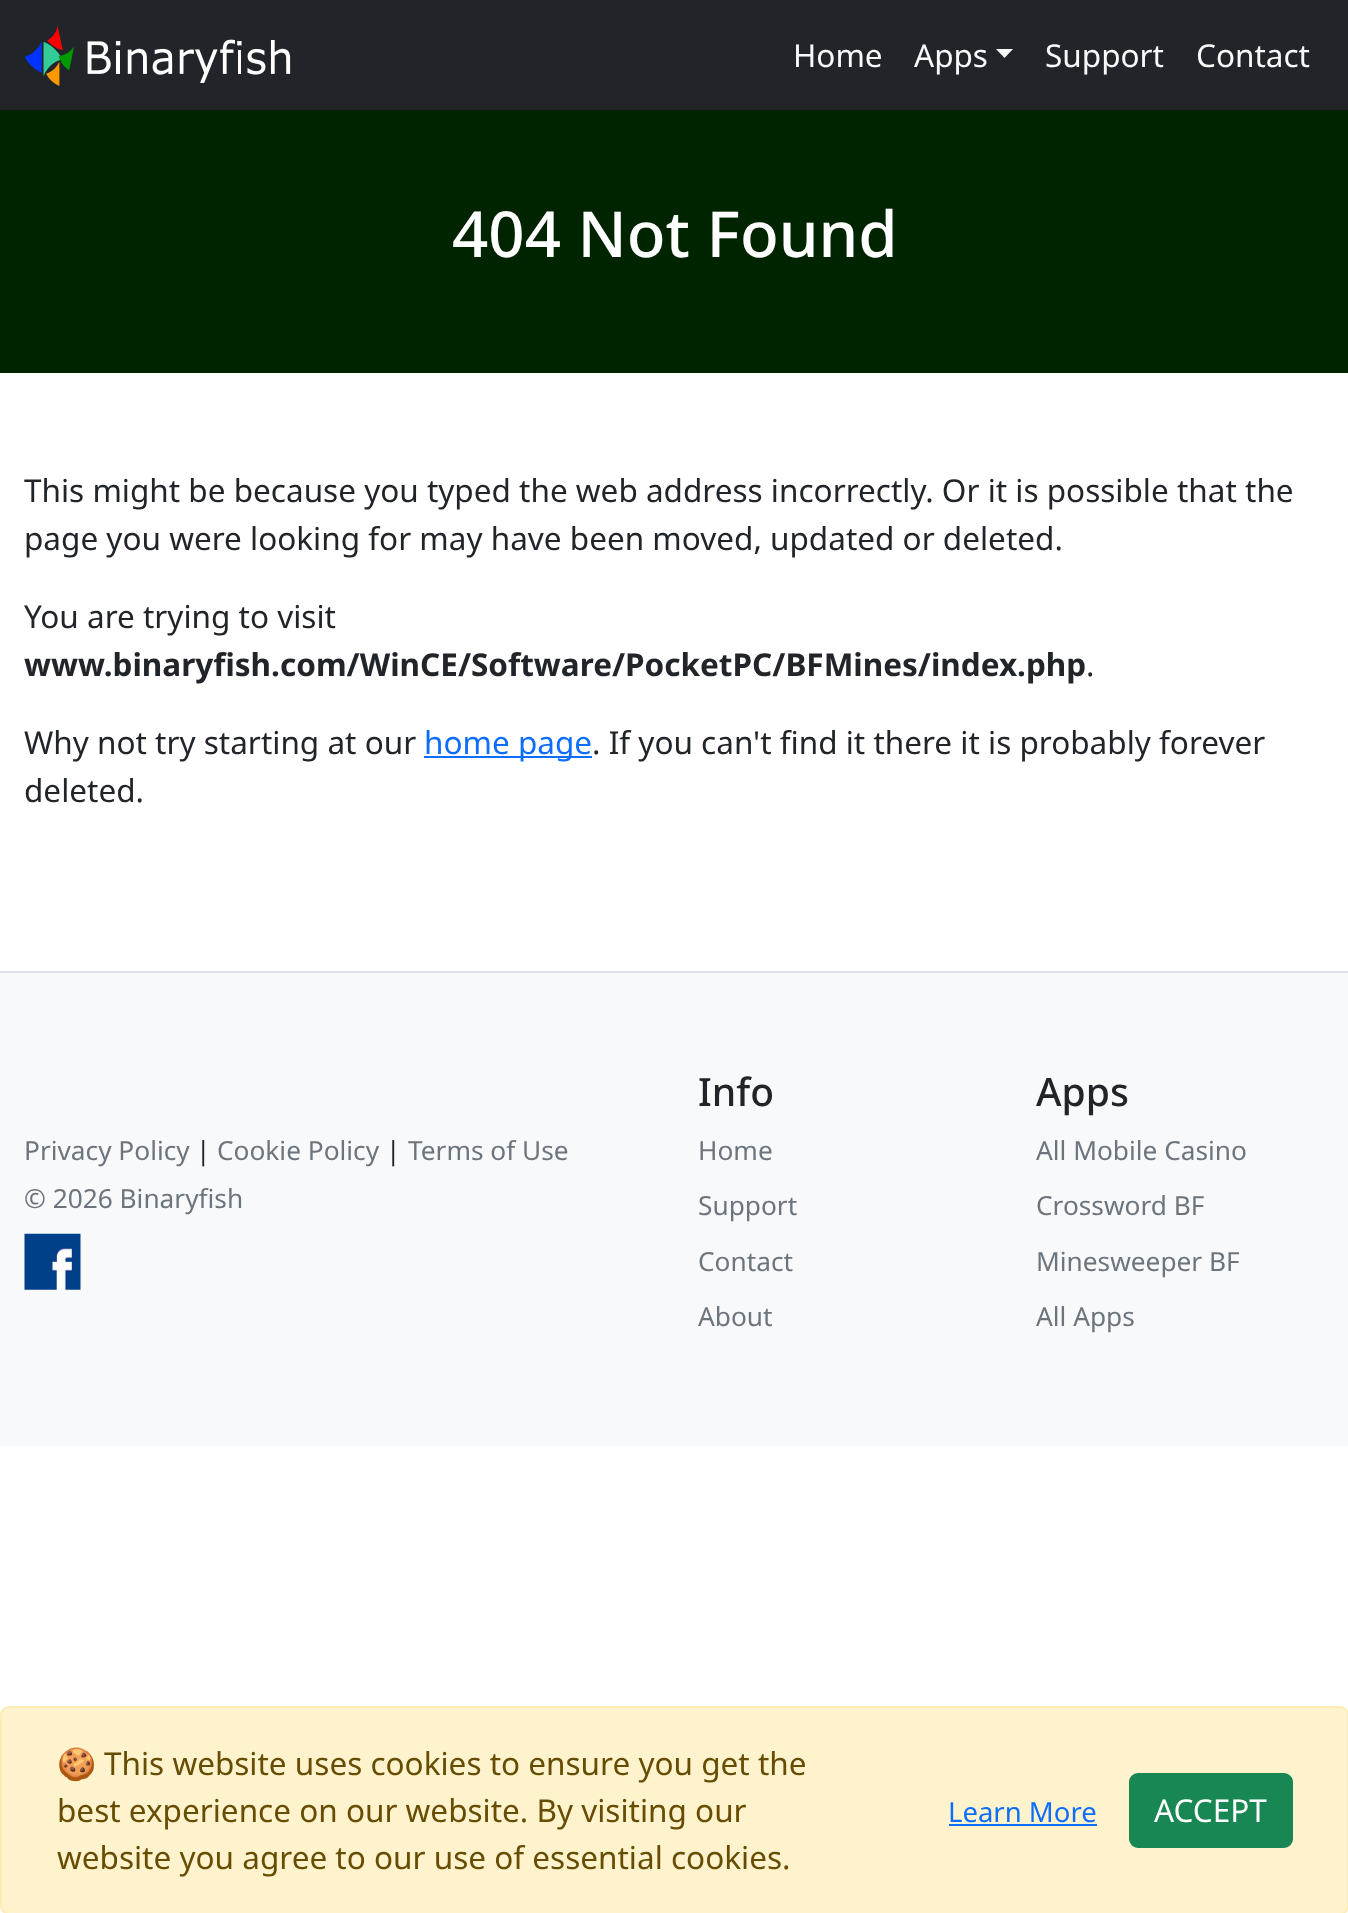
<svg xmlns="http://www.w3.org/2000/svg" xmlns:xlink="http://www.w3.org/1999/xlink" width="1348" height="1913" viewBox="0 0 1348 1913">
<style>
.cls-1{font:31.5px Noto Sans;fill:#f8f9fa}
.cls-2{font:500 63.5px Noto Sans;fill:#ffffff}
.cls-3{font:31.5px Noto Sans;fill:#212529}
.cls-4{font:bold 31.5px Noto Sans;fill:#212529}
.cls-5{font:31.5px Noto Sans;fill:#0d6efd}
.cls-6{font:26.25px Noto Sans;fill:#6c757d}
.cls-7{font:26.25px Noto Sans;fill:#212529}
.cls-8{font:500 39px Noto Sans;fill:#212529}
.cls-9{font:31.5px Noto Color Emoji;fill:#664d03}
.cls-10{font:31.5px Noto Sans;fill:#664d03}
.cls-11{font:27.5px Noto Sans;fill:#0d6efd}
.cls-12{font:31.5px Noto Sans;fill:#ffffff}
</style>
<rect width="100%" height="100%" fill="#ffffff"/>
<rect fill="#212529" x="0" y="0" width="1348" height="110"/>
<image xlink:href="image0.png" x="25" y="26" width="266" height="60"/>
<path fill="#f8f9fa" d="M996 49H1013L1004.5 58Z"/>
<rect fill="#002400" x="0" y="110" width="1348" height="263"/>
<rect fill="#0d6efd" x="424" y="756" width="168" height="2"/>
<rect fill="#f8f9fa" x="0" y="973" width="1348" height="473"/>
<rect fill="#dee2e6" x="0" y="971" width="1348" height="2"/>
<image xlink:href="image1.png" x="24" y="1233" width="57" height="57"/>
<rect fill="#fff3cd" stroke="#ffecb5" stroke-width="2" x="1" y="1707" width="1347" height="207" rx="8"/>
<rect fill="#0d6efd" x="949" y="1824" width="148" height="2"/>
<rect fill="#198754" stroke="#198754" stroke-width="2" x="1130" y="1774" width="162" height="73" rx="8"/>
<text class="cls-1" x="793" y="67">Home</text>
<text class="cls-1" x="914" y="67">Apps</text>
<text class="cls-1" x="1045" y="67">Support</text>
<text class="cls-1" x="1196" y="67">Contact</text>
<text class="cls-2" x="452" y="257">404 Not Found</text>
<text class="cls-3"><tspan x="24" y="502">This might be because you typed the web address incorrectly. Or it is possible that the</tspan><tspan x="24" y="550">page you were looking for may have been moved, updated or deleted.</tspan></text>
<text class="cls-3" x="24" y="628">You are trying to visit</text>
<text class="cls-4" x="24" y="676">www.binaryfish.com/WinCE/Software/PocketPC/BFMines/index.php</text>
<text class="cls-3" x="1086" y="676">.</text>
<text class="cls-3" x="24" y="754">Why not try starting at our</text>
<text class="cls-5" x="424" y="754">home page</text>
<text class="cls-3" x="592" y="754">. If you can't find it there it is probably forever</text>
<text class="cls-3" x="24" y="802">deleted.</text>
<text class="cls-6" x="24" y="1160">Privacy Policy</text>
<text class="cls-7" x="196" y="1160">|</text>
<text class="cls-6" x="217" y="1160">Cookie Policy</text>
<text class="cls-7" x="386" y="1160">|</text>
<text class="cls-6" x="408" y="1160">Terms of Use</text>
<text class="cls-6" x="24" y="1208">© 2026 Binaryfish</text>
<text class="cls-8" x="698" y="1106">Info</text>
<text class="cls-6" x="698" y="1160">Home</text>
<text class="cls-6" x="698" y="1215">Support</text>
<text class="cls-6" x="698" y="1271">Contact</text>
<text class="cls-6" x="698" y="1326">About</text>
<text class="cls-8" x="1036" y="1106">Apps</text>
<text class="cls-6" x="1036" y="1160">All Mobile Casino</text>
<text class="cls-6" x="1036" y="1215">Crossword BF</text>
<text class="cls-6" x="1036" y="1271">Minesweeper BF</text>
<text class="cls-6" x="1036" y="1326">All Apps</text>
<text class="cls-9" x="57" y="1775">🍪</text>
<text class="cls-10" x="104" y="1775">This website uses cookies to ensure you get the</text>
<text class="cls-10"><tspan x="57" y="1822">best experience on our website. By visiting our</tspan><tspan x="57" y="1869">website you agree to our use of essential cookies.</tspan></text>
<text class="cls-11" x="948" y="1822">Learn More</text>
<text class="cls-12" x="1154" y="1822">ACCEPT</text>
</svg>
